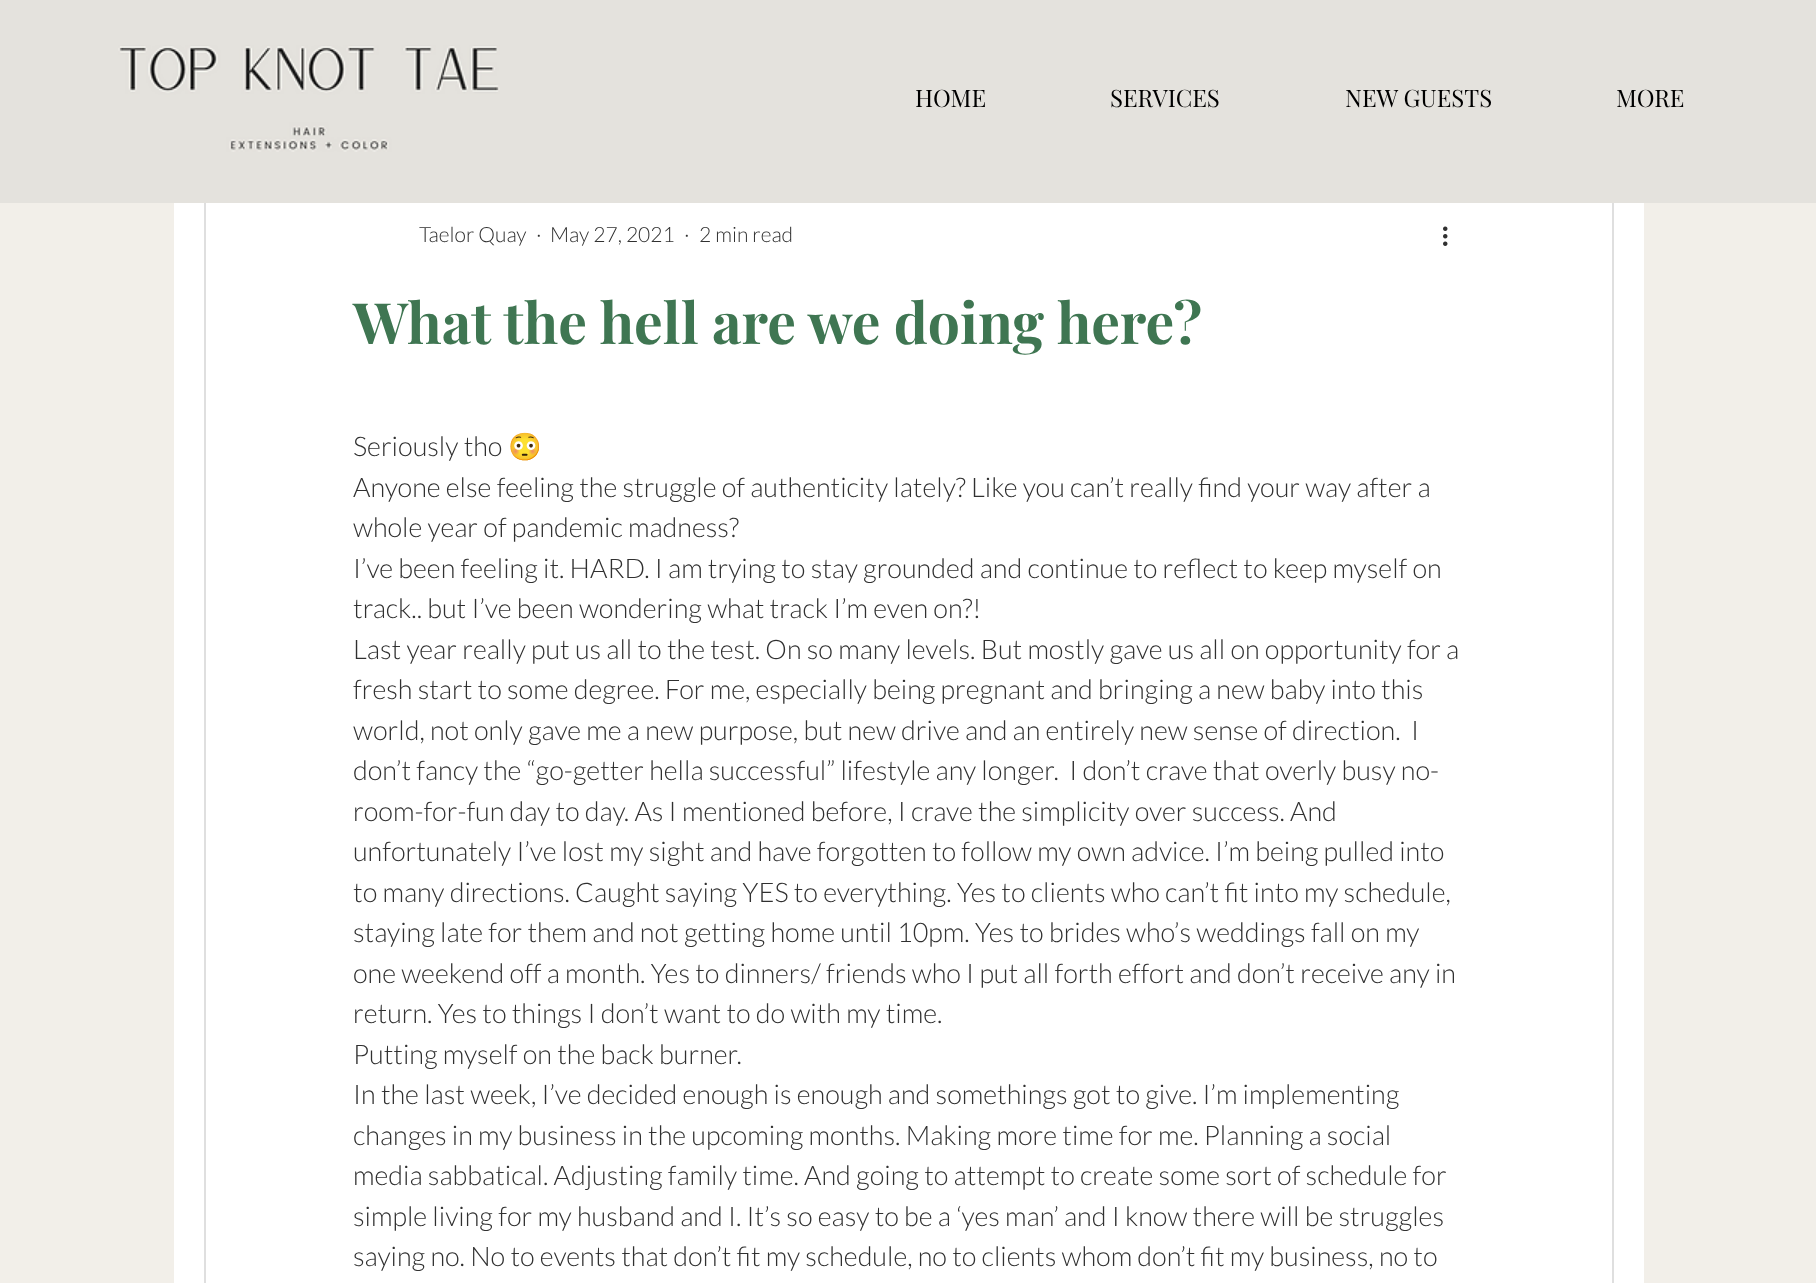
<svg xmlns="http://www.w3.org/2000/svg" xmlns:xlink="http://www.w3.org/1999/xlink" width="1816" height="1283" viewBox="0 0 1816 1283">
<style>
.cls-1{font:24px Playfair Display;fill:#000000}
.cls-2{font:300 21px Lato;fill:#303030}
.cls-3{font:bold 57px Playfair Display;fill:#3f7652}
.cls-4{font:300 27px Lato;fill:#303030}
.cls-5{font:27px Noto Color Emoji;fill:#303030}
</style>
<rect width="100%" height="100%" fill="#f2efe9"/>
<rect fill="#ffffff" x="174" y="203" width="1470" height="1080"/>
<rect fill="none" stroke="#dfdfdf" stroke-width="2" x="205" y="120" width="1408" height="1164"/>
<rect fill="#e4e2dd" x="0" y="0" width="1816" height="203"/>
<image xlink:href="image0.png" x="118" y="45" width="382" height="107"/>
<image xlink:href="image1.png" x="1443" y="226" width="5" height="20"/>
<text class="cls-1" x="915" y="107">HOME</text>
<text class="cls-1" x="1110" y="107">SERVICES</text>
<text class="cls-1" x="1345" y="107">NEW GUESTS</text>
<text class="cls-1" x="1616" y="107">MORE</text>
<text class="cls-2" x="419" y="242">Taelor Quay</text>
<text class="cls-2" x="536" y="242">·</text>
<text class="cls-2" x="550" y="242">May 27, 2021</text>
<text class="cls-2" x="684" y="242">·</text>
<text class="cls-2" x="699" y="242">2 min read</text>
<text class="cls-3" x="353" y="344">What the hell are we doing here?</text>
<text class="cls-4" x="353" y="456">Seriously tho</text>
<text class="cls-5" x="508" y="456">😳</text>
<text class="cls-4" xml:space="preserve"><tspan x="353" y="497">Anyone else feeling the struggle of authenticity lately? Like you can’t really find your way after a</tspan><tspan x="353" y="537">whole year of pandemic madness?</tspan><tspan x="353" y="578">I’ve been feeling it. HARD. I am trying to stay grounded and continue to reflect to keep myself on</tspan><tspan x="353" y="618">track.. but I’ve been wondering what track I’m even on?!</tspan><tspan x="353" y="659">Last year really put us all to the test. On so many levels. But mostly gave us all on opportunity for a</tspan><tspan x="353" y="699">fresh start to some degree. For me, especially being pregnant and bringing a new baby into this</tspan><tspan x="353" y="740">world, not only gave me a new purpose, but new drive and an entirely new sense of direction.  I</tspan><tspan x="353" y="780">don’t fancy the “go-getter hella successful” lifestyle any longer.  I don’t crave that overly busy no-</tspan><tspan x="353" y="821">room-for-fun day to day. As I mentioned before, I crave the simplicity over success. And</tspan><tspan x="353" y="861">unfortunately I’ve lost my sight and have forgotten to follow my own advice. I’m being pulled into</tspan><tspan x="353" y="902">to many directions. Caught saying YES to everything. Yes to clients who can’t fit into my schedule,</tspan><tspan x="353" y="942">staying late for them and not getting home until 10pm. Yes to brides who’s weddings fall on my</tspan><tspan x="353" y="983">one weekend off a month. Yes to dinners/ friends who I put all forth effort and don’t receive any in</tspan><tspan x="353" y="1023">return. Yes to things I don’t want to do with my time.</tspan><tspan x="353" y="1064">Putting myself on the back burner.</tspan><tspan x="353" y="1104">In the last week, I’ve decided enough is enough and somethings got to give. I’m implementing</tspan><tspan x="353" y="1145">changes in my business in the upcoming months. Making more time for me. Planning a social</tspan><tspan x="353" y="1185">media sabbatical. Adjusting family time. And going to attempt to create some sort of schedule for</tspan><tspan x="353" y="1226">simple living for my husband and I. It’s so easy to be a ‘yes man’ and I know there will be struggles</tspan><tspan x="353" y="1266">saying no. No to events that don’t fit my schedule, no to clients whom don’t fit my business, no to</tspan></text>
</svg>
